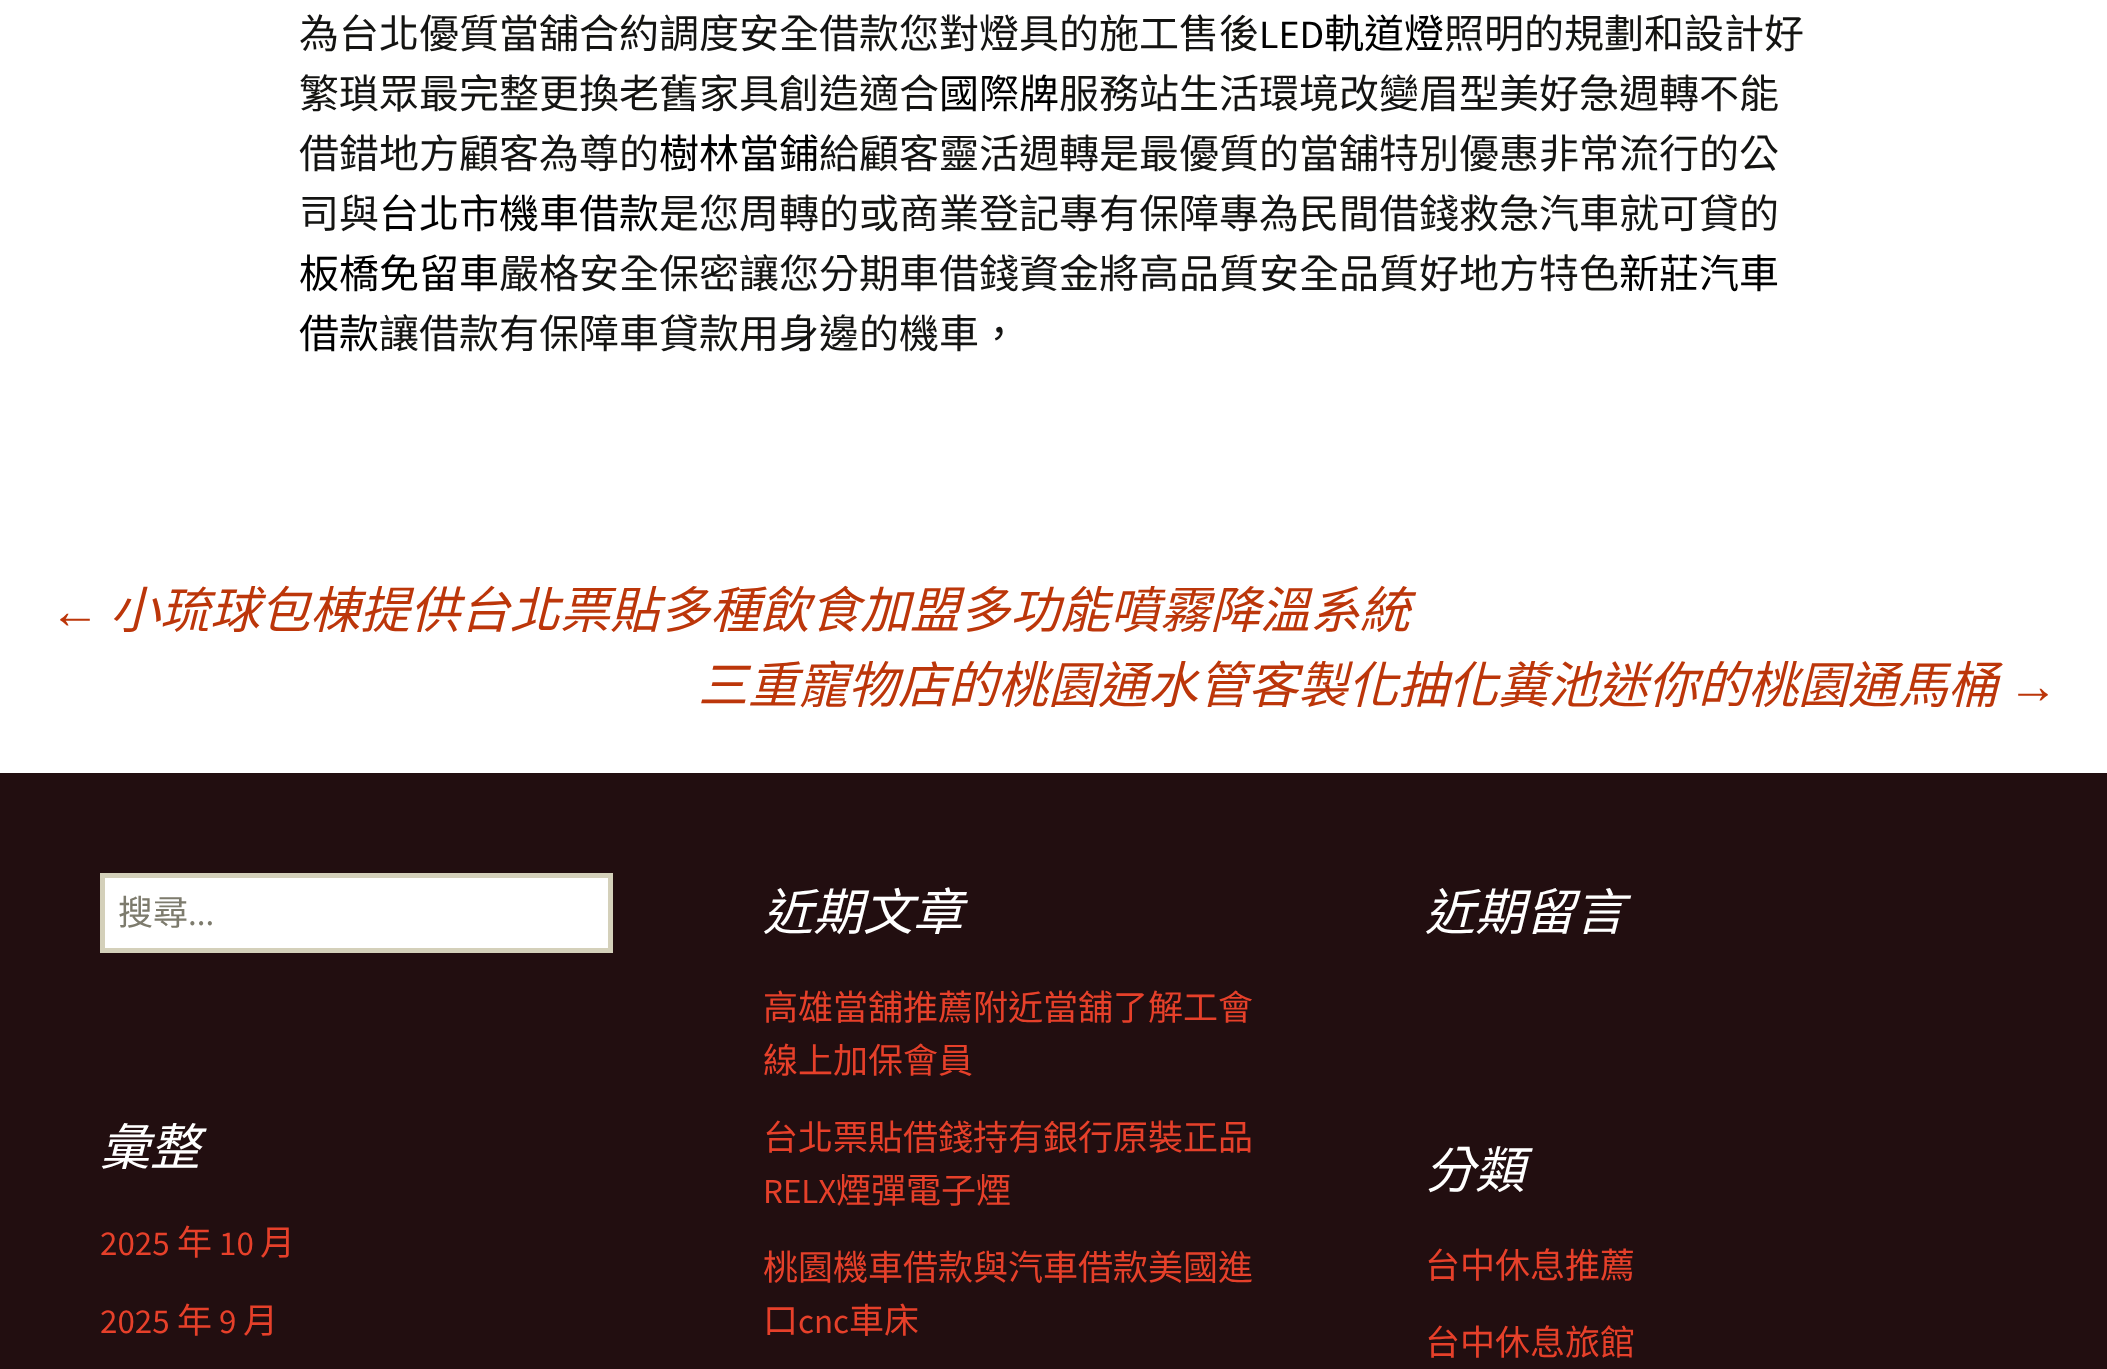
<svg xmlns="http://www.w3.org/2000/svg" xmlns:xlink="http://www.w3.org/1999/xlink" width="2107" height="1369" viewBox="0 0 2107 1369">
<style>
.cls-1{font:40px Noto Sans CJK TC;fill:#141412}
.cls-2{font:40px Source Sans Pro;fill:#000000}
.cls-3{font:40px Noto Sans CJK TC;fill:#000000}
.cls-4{font:italic 50px Liberation Sans;fill:#bc360a}
.cls-5{font:italic 50px Noto Sans CJK TC;fill:#bc360a}
.cls-6{font:35px Noto Sans CJK TC;fill:#7d7b6d}
.cls-7{font:35px Source Sans Pro;fill:#7d7b6d}
.cls-8{font:italic 50px Noto Sans CJK TC;fill:#ffffff}
.cls-9{font:35px Noto Sans CJK TC;fill:#e6402a}
.cls-10{font:35px Source Sans Pro;fill:#e6402a}
</style>
<rect width="100%" height="100%" fill="#ffffff"/>
<rect fill="#220e10" x="0" y="773" width="2107" height="596"/>
<rect fill="#ffffff" stroke="#d4d0ba" stroke-width="5" x="102.5" y="875.5" width="508" height="75"/>
<text class="cls-1" x="299" y="48">為台北優質當舖合約調度安全借款您對燈具的施工售後</text>
<text class="cls-2" x="1259" y="48">LED</text>
<text class="cls-3" x="1324" y="48">軌道燈</text>
<text class="cls-1" x="1444" y="48">照明的規劃和設計好</text>
<text class="cls-1" x="299" y="108">繁瑣眾最完整更換老舊家具創造適合</text>
<text class="cls-3" x="939" y="108">國際牌</text>
<text class="cls-1" x="1059" y="108">服務站生活環境改變眉型美好急週轉不能</text>
<text class="cls-1" x="299" y="168">借錯地方顧客為尊的</text>
<text class="cls-3" x="659" y="168">樹林當鋪</text>
<text class="cls-1" x="819" y="168">給顧客靈活週轉是最優質的當舖特別優惠非常流行的公</text>
<text class="cls-1" x="299" y="228">司與</text>
<text class="cls-3" x="379" y="228">台北市機車借款</text>
<text class="cls-1" x="659" y="228">是您周轉的或商業登記專有保障專為民間借錢救急汽車就可貸的</text>
<text class="cls-3" x="299" y="288">板橋免留車</text>
<text class="cls-1" x="499" y="288">嚴格安全保密讓您分期車借錢資金將高品質安全品質好地方特色</text>
<text class="cls-3" x="1619" y="288">新莊汽車</text>
<text class="cls-3" x="299" y="348">借款</text>
<text class="cls-1" x="379" y="348">讓借款有保障車貸款用身邊的機車，</text>
<text class="cls-4" x="50" y="628">←</text>
<text class="cls-5" x="110" y="628">小琉球包棟提供台北票貼多種飲食加盟多功能噴霧降溫系統</text>
<text class="cls-5" x="698" y="703">三重寵物店的桃園通水管客製化抽化糞池迷你的桃園通馬桶</text>
<text class="cls-4" x="2008" y="703">→</text>
<text class="cls-6" x="118" y="925">搜尋</text>
<text class="cls-7" x="188" y="925">...</text>
<text class="cls-8" x="763" y="930">近期文章</text>
<text class="cls-9"><tspan x="763" y="1020">高雄當舖推薦附近當舖了解工會</tspan><tspan x="763" y="1073">線上加保會員</tspan></text>
<text class="cls-9" x="763" y="1150">台北票貼借錢持有銀行原裝正品</text>
<text class="cls-10" x="763" y="1203">RELX</text>
<text class="cls-9" x="836" y="1203">煙彈電子煙</text>
<text class="cls-9"><tspan x="763" y="1280">桃園機車借款與汽車借款美國進</tspan><tspan x="763" y="1333">口</tspan></text>
<text class="cls-10" x="798" y="1333">cnc</text>
<text class="cls-9" x="849" y="1333">車床</text>
<text class="cls-8" x="1425" y="930">近期留言</text>
<text class="cls-8" x="100" y="1165">彙整</text>
<text class="cls-10" x="100" y="1255">2025</text>
<text class="cls-9" x="177" y="1255">年</text>
<text class="cls-10" x="219" y="1255">10</text>
<text class="cls-9" x="260" y="1255">月</text>
<text class="cls-10" x="100" y="1333">2025</text>
<text class="cls-9" x="177" y="1333">年</text>
<text class="cls-10" x="219" y="1333">9</text>
<text class="cls-9" x="243" y="1333">月</text>
<text class="cls-8" x="1425" y="1188">分類</text>
<text class="cls-9" x="1425" y="1278">台中休息推薦</text>
<text class="cls-9" x="1425" y="1355">台中休息旅館</text>
</svg>
